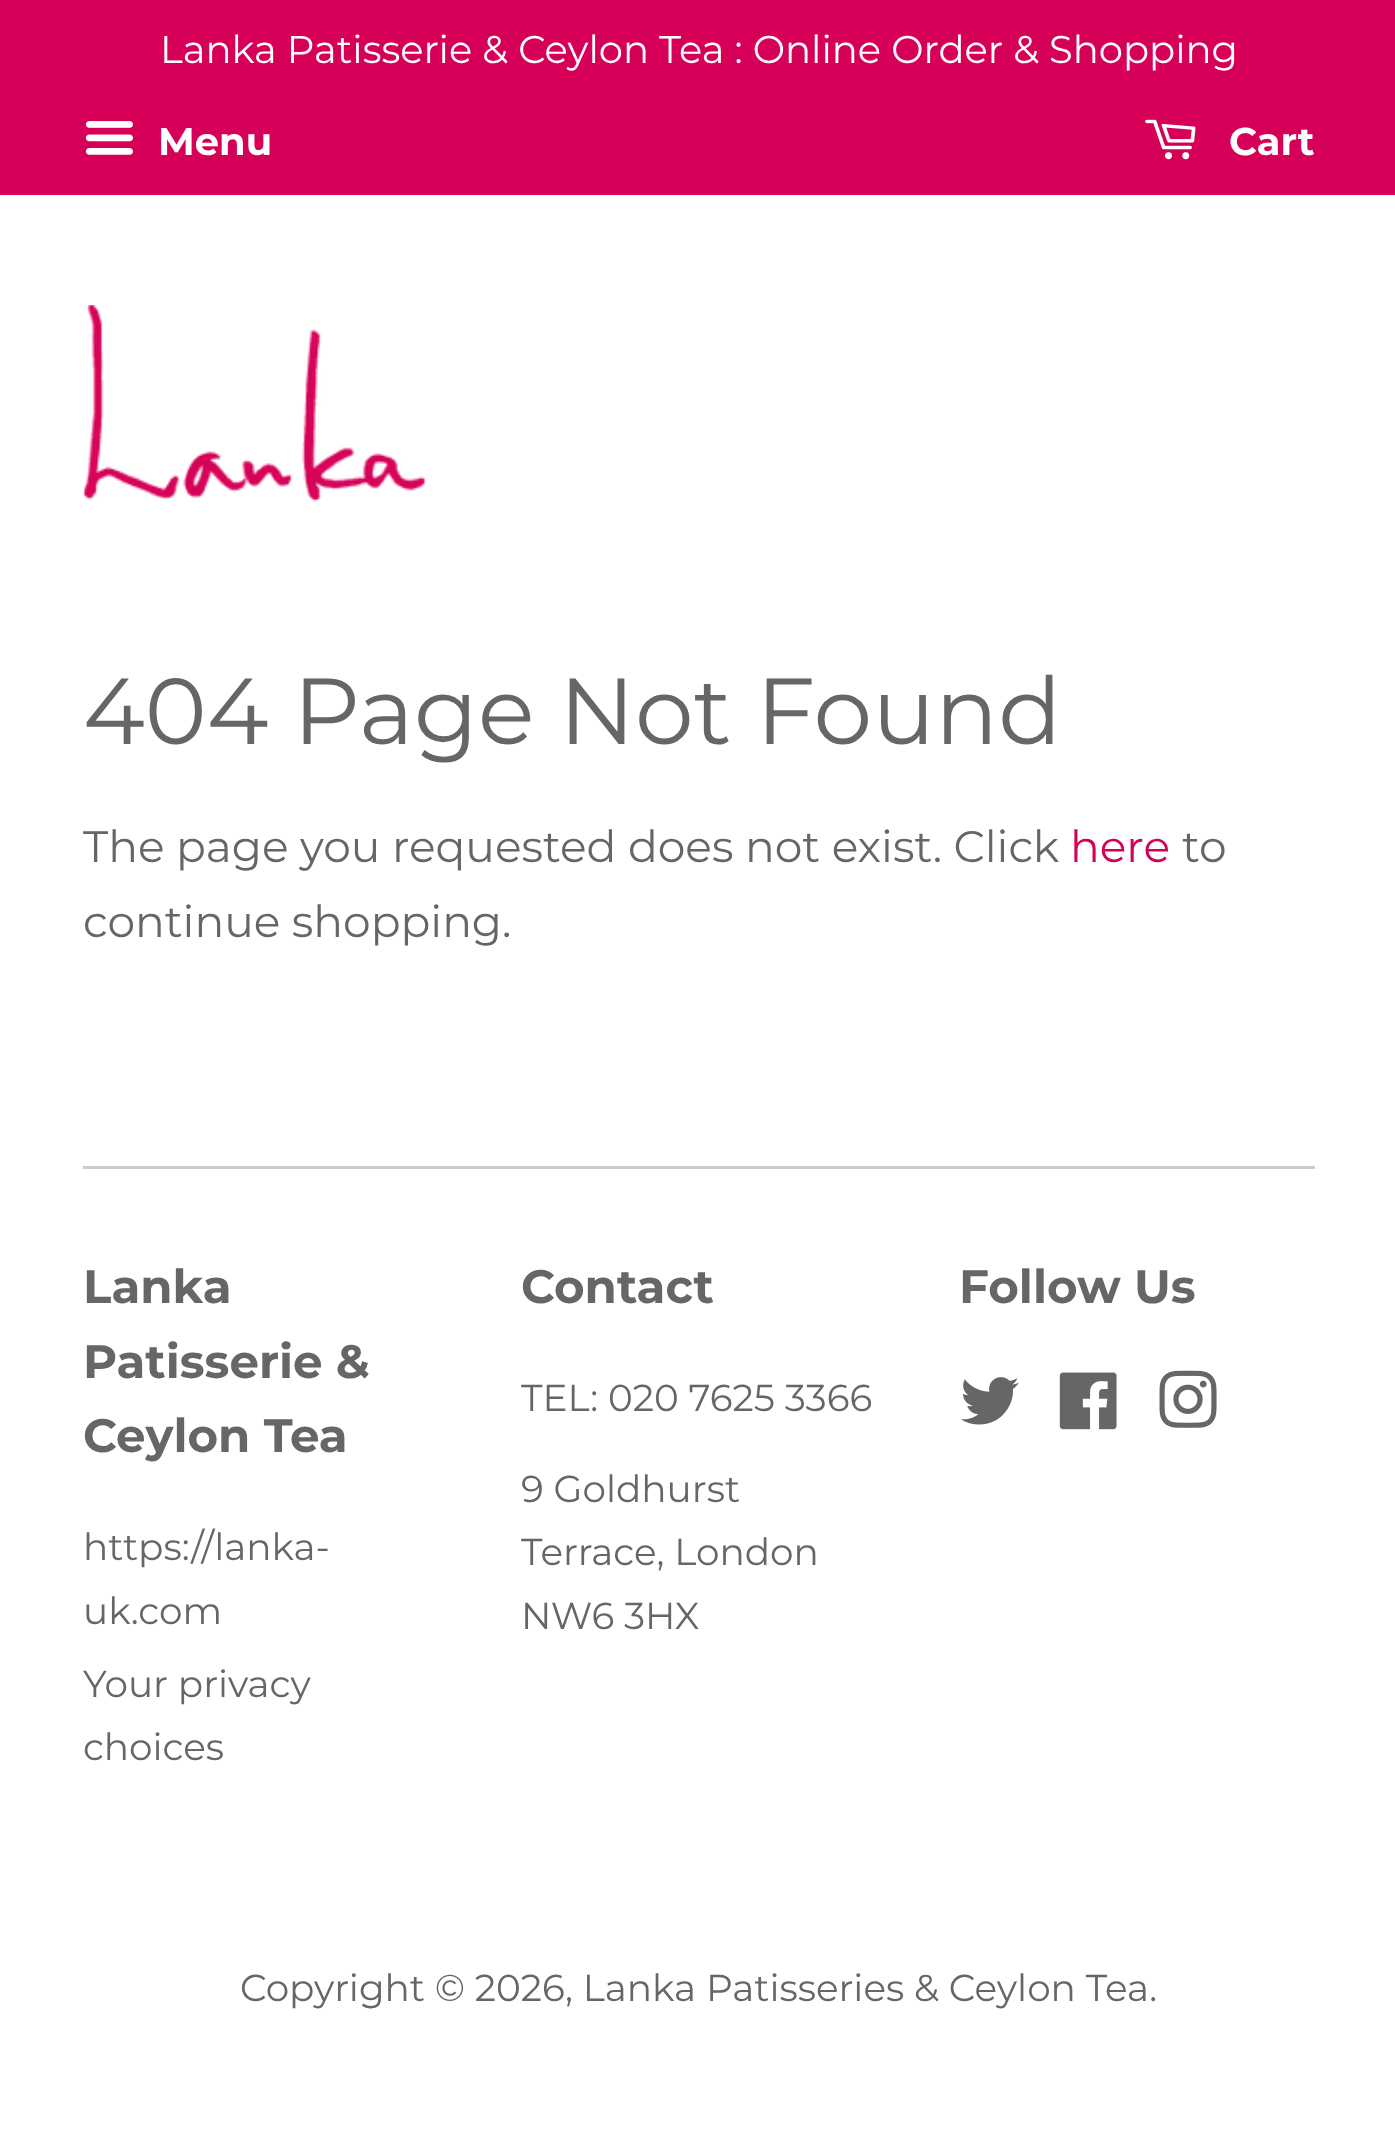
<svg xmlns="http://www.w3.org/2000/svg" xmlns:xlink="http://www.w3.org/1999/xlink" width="1395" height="2144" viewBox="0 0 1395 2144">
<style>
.cls-1{font:38.5px Montserrat;fill:#ffffff}
.cls-2{font:bold 38.5px Montserrat;fill:#ffffff}
.cls-3{font:93.5px Montserrat;fill:#666666}
.cls-4{font:44px Montserrat;fill:#666666}
.cls-5{font:44px Montserrat;fill:#d60059}
.cls-6{font:bold 46.75px Montserrat;fill:#666666}
.cls-7{font:37.4px Montserrat;fill:#666666}
</style>
<rect width="100%" height="100%" fill="#ffffff"/>
<rect fill="#d60059" x="0" y="0" width="1395" height="195"/>
<image xlink:href="image0.png" x="85" y="121" width="48" height="34"/>
<image xlink:href="image1.png" x="1145" y="119" width="51" height="41"/>
<image xlink:href="image2.png" x="82" y="305" width="344" height="197"/>
<rect fill="#cccccc" x="83" y="1166" width="1232" height="3"/>
<image xlink:href="image3.png" x="961" y="1377" width="58" height="48"/>
<image xlink:href="image4.png" x="1059" y="1372" width="58" height="58"/>
<image xlink:href="image5.png" x="1159" y="1370" width="58" height="58"/>
<text class="cls-1" x="160" y="63">Lanka Patisserie &amp; Ceylon Tea : Online Order &amp; Shopping</text>
<text class="cls-2" x="158" y="155">Menu</text>
<text class="cls-2" x="1229" y="155">Cart</text>
<text class="cls-3" x="83" y="744">404 Page Not Found</text>
<text class="cls-4" x="83" y="862">The page you requested does not exist. Click</text>
<text class="cls-5" x="1070" y="862">here</text>
<text class="cls-4" x="1182" y="862">to</text>
<text class="cls-4" x="83" y="937">continue shopping.</text>
<text class="cls-6"><tspan x="83" y="1303">Lanka</tspan><tspan x="83" y="1378">Patisserie &amp;</tspan><tspan x="83" y="1452">Ceylon Tea</tspan></text>
<text class="cls-7"><tspan x="83" y="1560">https://lanka-</tspan><tspan x="83" y="1624">uk.com</tspan><tspan x="83" y="1697">Your privacy</tspan><tspan x="83" y="1760">choices</tspan></text>
<text class="cls-6" x="521" y="1303">Contact</text>
<text class="cls-7" x="521" y="1411">TEL: 020 7625 3366</text>
<text class="cls-7"><tspan x="521" y="1502">9 Goldhurst</tspan><tspan x="521" y="1565">Terrace, London</tspan><tspan x="521" y="1629">NW6 3HX</tspan></text>
<text class="cls-6" x="959" y="1303">Follow Us</text>
<text class="cls-7" x="240" y="2001">Copyright © 2026, Lanka Patisseries &amp; Ceylon Tea.</text>
</svg>
